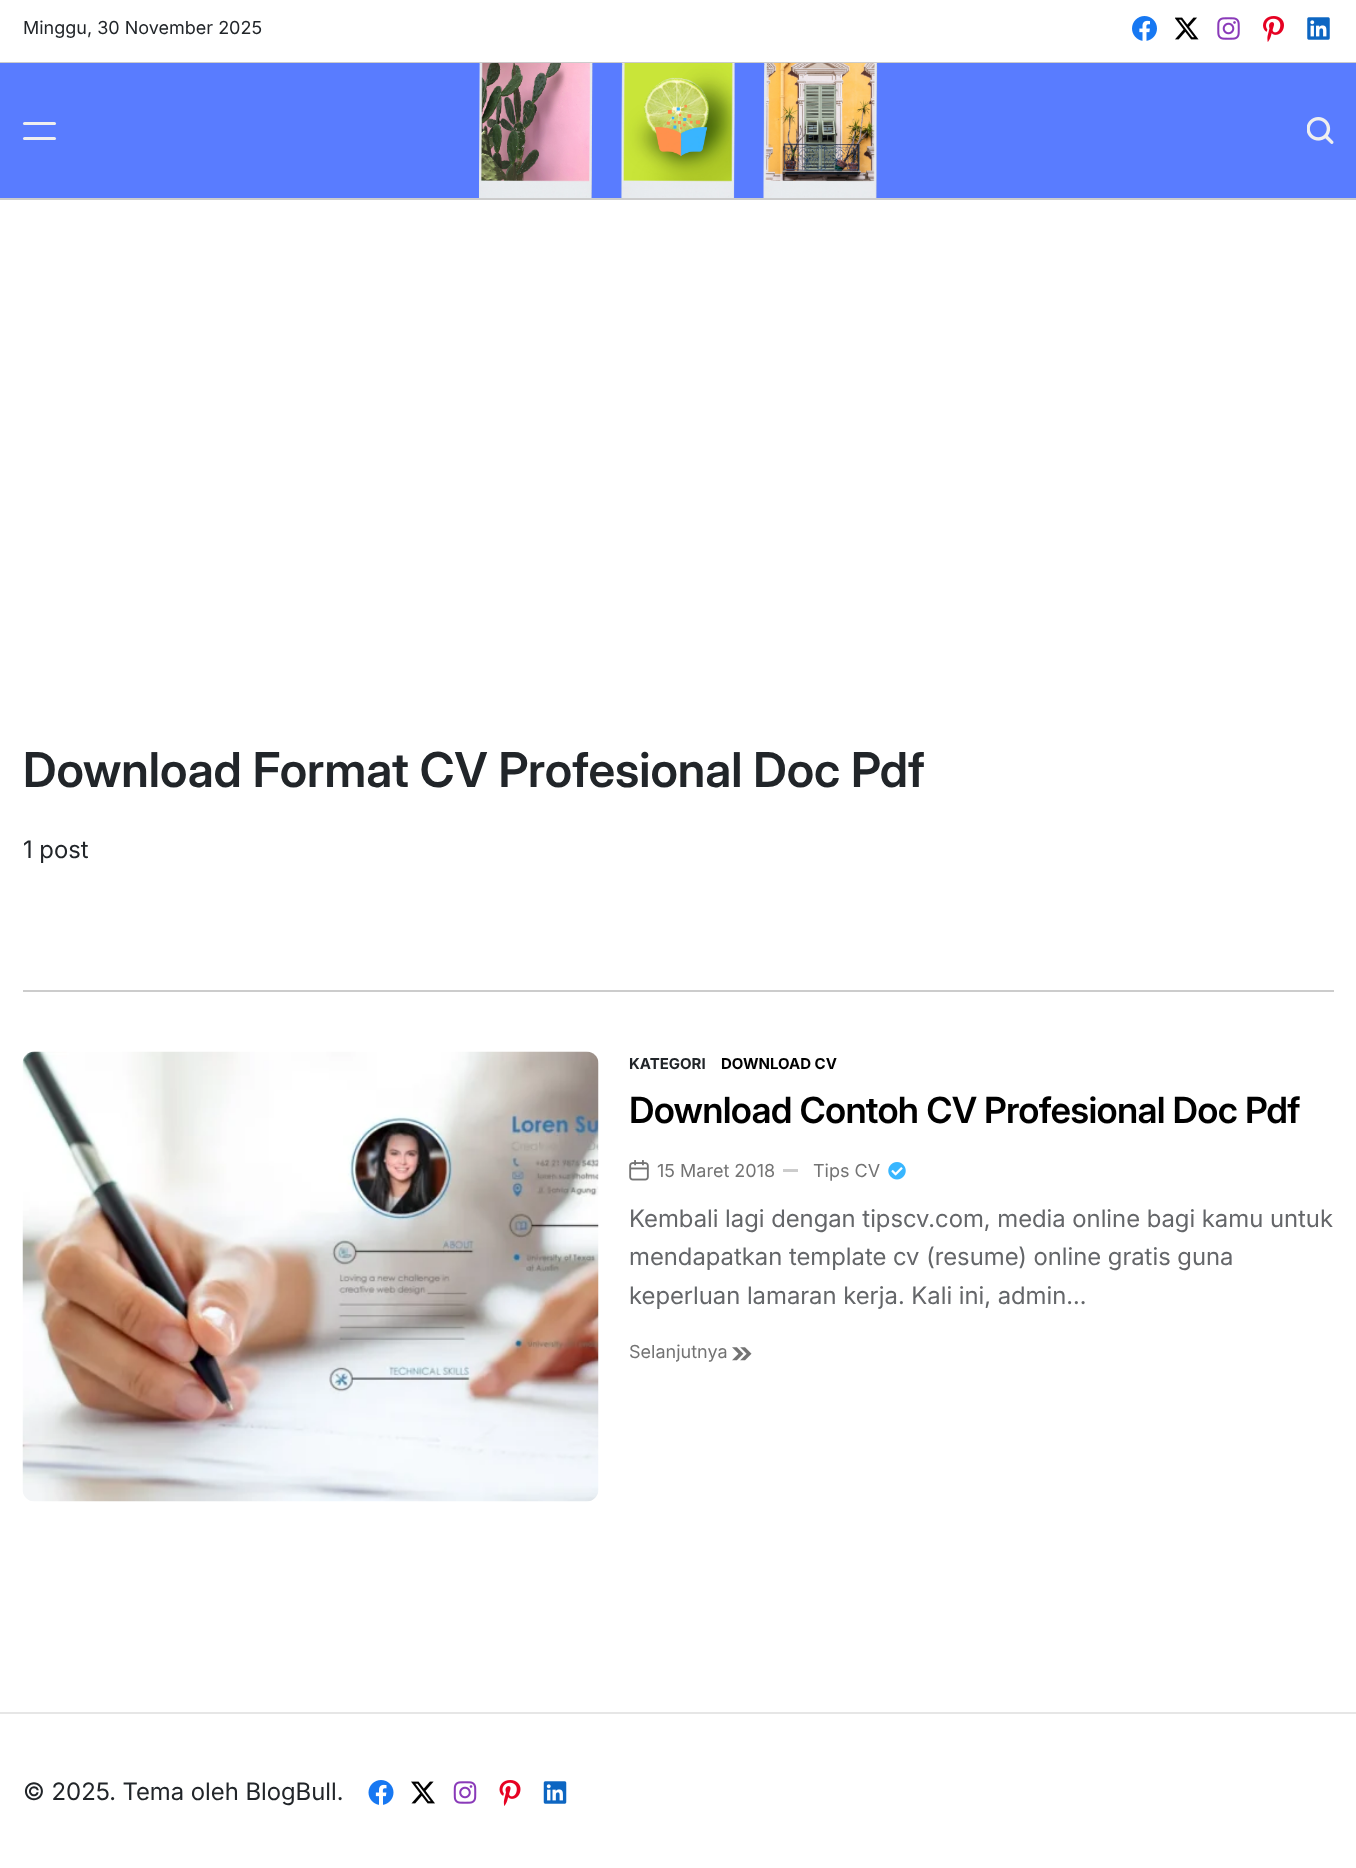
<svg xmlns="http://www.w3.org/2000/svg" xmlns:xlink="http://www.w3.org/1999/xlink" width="1356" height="1868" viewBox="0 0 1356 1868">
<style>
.cls-1{font:18px Inter;fill:#212529}
.cls-2{font:600 48px Inter;fill:#212529}
.cls-3{font:24px 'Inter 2';fill:#212529}
.cls-4{font:bold 15px Inter;fill:#212529}
.cls-5{font:bold 15px Inter;fill:#000000}
.cls-6{font:600 36px 'Inter 2';letter-spacing:-0.75px;fill:#000000}
.cls-7{font:18px Inter;fill:#737373}
.cls-8{font:24px 'Inter 2';fill:#646669}
</style>
<rect width="100%" height="100%" fill="#ffffff"/>
<rect fill="#cccccc" x="0" y="62" width="1356" height="1"/>
<image xlink:href="image0.png" x="1132" y="16" width="25" height="25"/>
<image xlink:href="image1.png" x="1175" y="17" width="24" height="23"/>
<image xlink:href="image2.png" x="1217" y="17" width="23" height="23"/>
<image xlink:href="image3.png" x="1263" y="16" width="21" height="26"/>
<image xlink:href="image4.png" x="1307" y="17" width="23" height="23"/>
<image xlink:href="image5.png" x="0" y="63" width="1356" height="135"/>
<rect fill="#cccccc" x="0" y="198" width="1356" height="2"/>
<rect fill="#efefef" x="23" y="122" width="33" height="3" rx="1.5"/>
<rect fill="#efefef" x="23" y="137" width="33" height="3" rx="1.5"/>
<image xlink:href="image6.png" x="654" y="104" width="54" height="53"/>
<image xlink:href="image7.png" x="1307" y="117" width="27" height="27"/>
<rect fill="#cccccc" x="23" y="990" width="1311" height="2"/>
<image xlink:href="image8.png" x="22" y="1051" width="577" height="451"/>
<image xlink:href="image9.png" x="629" y="1160" width="20" height="21"/>
<rect fill="#cccccc" x="783" y="1169" width="15" height="3"/>
<image xlink:href="image10.png" x="888" y="1162" width="18" height="18"/>
<image xlink:href="image11.png" x="732" y="1347" width="20" height="14"/>
<rect fill="#e6e6e6" x="0" y="1712" width="1356" height="2"/>
<image xlink:href="image12.png" x="368" y="1780" width="26" height="25"/>
<image xlink:href="image13.png" x="411" y="1781" width="24" height="23"/>
<image xlink:href="image14.png" x="453" y="1781" width="24" height="23"/>
<image xlink:href="image15.png" x="499" y="1780" width="22" height="26"/>
<image xlink:href="image16.png" x="543" y="1781" width="24" height="23"/>
<text class="cls-1" x="23" y="34">Minggu, 30 November 2025</text>
<text class="cls-2" x="23" y="787">Download Format CV Profesional Doc Pdf</text>
<text class="cls-3" x="23" y="858">1 post</text>
<text class="cls-4" x="629" y="1069">KATEGORI</text>
<text class="cls-5" x="721" y="1069">DOWNLOAD CV</text>
<text class="cls-6" x="629" y="1123">Download Contoh CV Profesional Doc Pdf</text>
<text class="cls-7" x="657" y="1177">15 Maret 2018</text>
<text class="cls-7" x="813" y="1177">Tips CV</text>
<text class="cls-8"><tspan x="629" y="1227">Kembali lagi dengan tipscv.com, media online bagi kamu untuk</tspan><tspan x="629" y="1265">mendapatkan template cv (resume) online gratis guna</tspan><tspan x="629" y="1304">keperluan lamaran kerja. Kali ini, admin…</tspan></text>
<text class="cls-7" x="629" y="1358">Selanjutnya</text>
<text class="cls-3" x="23" y="1800">© 2025. Tema oleh BlogBull.</text>
</svg>
